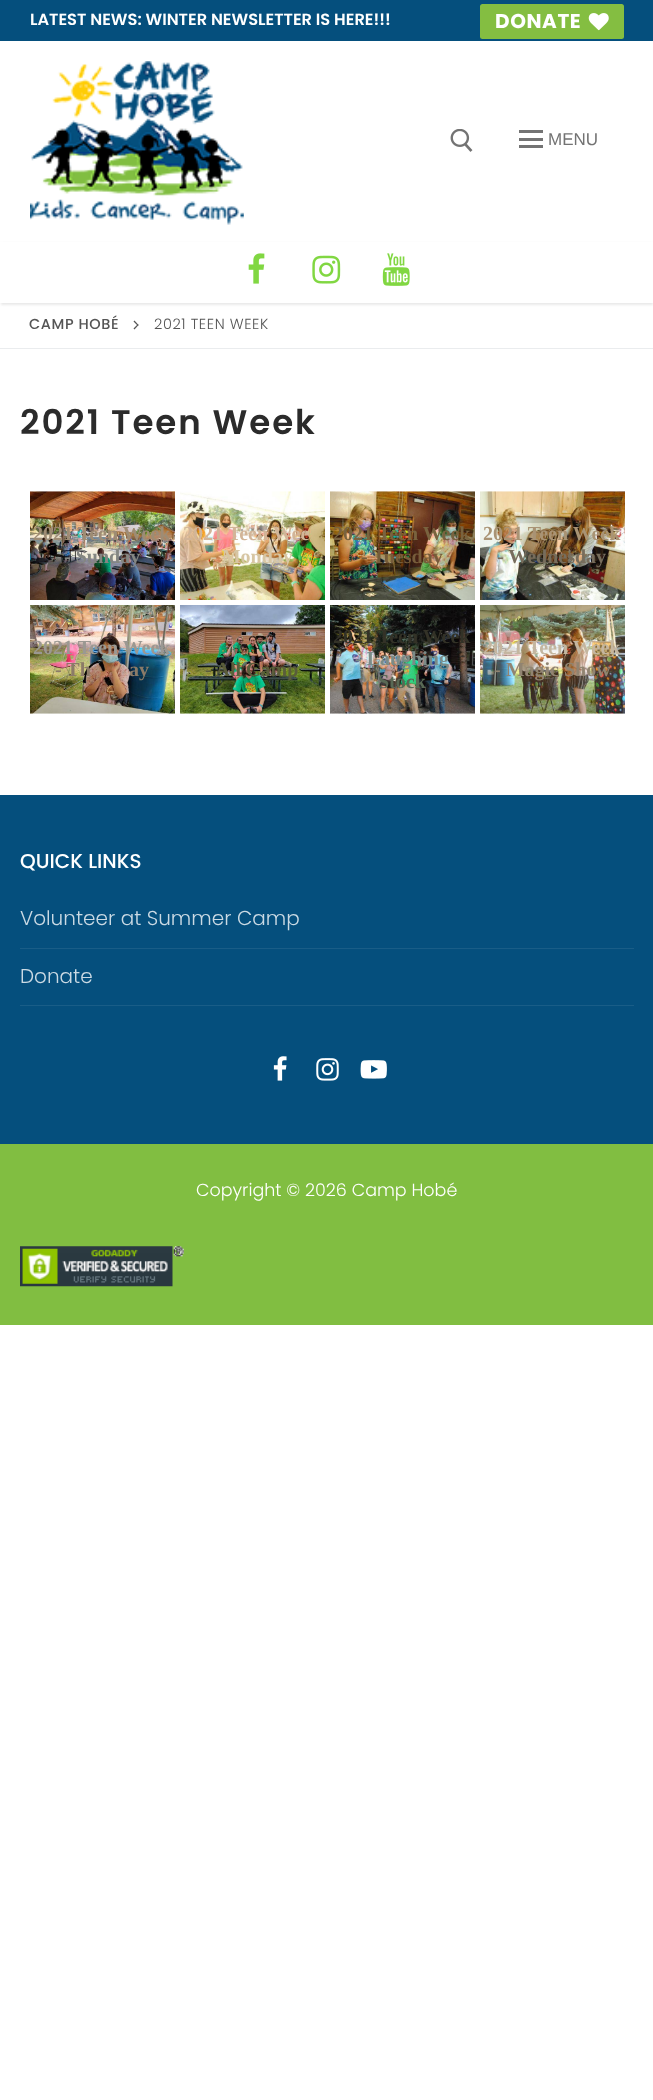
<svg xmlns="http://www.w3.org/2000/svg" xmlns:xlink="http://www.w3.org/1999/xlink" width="653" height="2100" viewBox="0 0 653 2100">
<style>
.cls-1{font:600 16.25px Poppins;fill:#ffffff}
.cls-2{font:bold 20px Poppins;letter-spacing:0.6px;fill:#ffffff}
.cls-3{font:17px Liberation Sans;fill:#737373}
.cls-4{font:500 14.5px Poppins;letter-spacing:0.6px;fill:#555555}
.cls-5{font:300 14.5px Poppins;letter-spacing:0.6px;fill:#555555}
.cls-6{font:600 34px Poppins;letter-spacing:1.9px;fill:#2b2b2b}
.cls-7{font:bold 20px Liberation Serif;fill:#9e8c74}
.cls-8{font:bold 20px Liberation Serif;fill:#848682}
.cls-9{font:bold 20px Liberation Serif;fill:#d2b598}
.cls-10{font:bold 20px Liberation Serif;fill:#d7c6a3}
.cls-11{font:bold 20px Liberation Serif;fill:#79633f}
.cls-12{font:bold 20px Liberation Serif;fill:#765c3a}
.cls-13{font:bold 20px Liberation Serif;fill:#a99374}
.cls-14{font:bold 20px Liberation Serif;fill:#776d5c}
.cls-15{font:bold 20px Liberation Serif;fill:#9b9892}
.cls-16{font:bold 20px Liberation Serif;fill:#8b7b68}
.cls-17{font:bold 20px Liberation Serif;fill:#5a5d3b}
.cls-18{font:bold 20px Liberation Serif;fill:#333227}
.cls-19{font:bold 20px Liberation Serif;fill:#7b8b87}
.cls-20{font:bold 20px Liberation Serif;fill:#596955}
.cls-21{font:bold 20px Liberation Serif;fill:#c4b6a0}
.cls-22{font:bold 20px Liberation Serif;fill:#918471}
.cls-23{font:500 20px Poppins;fill:#ffffff}
.cls-24{font:300 20px Poppins;fill:#cbdae4}
.cls-25{font:300 17.5px Poppins;fill:#ffffff}
</style>
<rect width="100%" height="100%" fill="#ffffff"/>
<rect fill="#054f7d" x="0" y="0" width="653" height="41"/>
<rect fill="#84be41" x="480" y="4" width="144" height="35" rx="2.5"/>
<image xlink:href="image0.png" x="588" y="13" width="21" height="18"/>
<image xlink:href="image1.png" x="30" y="61" width="214" height="164"/>
<image xlink:href="image2.png" x="450" y="129" width="23" height="23"/>
<rect fill="#737373" x="519" y="138" width="24" height="3"/>
<rect fill="#737373" x="519" y="130" width="24" height="3"/>
<rect fill="#737373" x="519" y="145" width="24" height="3"/>
<rect fill="#eaeaea" filter="blur(1px)" x="1" y="243" width="652" height="62"/>
<rect fill="#ffffff" x="0" y="242" width="653" height="61"/>
<image xlink:href="image3.png" x="248" y="253" width="17" height="31"/>
<image xlink:href="image4.png" x="312" y="255" width="29" height="29"/>
<image xlink:href="image5.png" x="382" y="253" width="28" height="33"/>
<rect fill="#eaecee" x="0" y="348" width="653" height="1"/>
<path fill="#555555" d="M138.5 325L134.5 329.5L133.5 328.5L138 324Z"/>
<path fill="#555555" d="M138.5 325L138 326L133.5 321.5L134.5 320.5Z"/>
<image xlink:href="image6.png" x="30" y="491" width="145" height="109"/>
<image xlink:href="image7.png" x="180" y="491" width="145" height="109"/>
<image xlink:href="image8.png" x="330" y="491" width="145" height="109"/>
<image xlink:href="image9.png" x="480" y="491" width="145" height="109"/>
<image xlink:href="image10.png" x="30" y="605" width="145" height="109"/>
<image xlink:href="image11.png" x="180" y="605" width="145" height="109"/>
<image xlink:href="image12.png" x="330" y="605" width="145" height="109"/>
<image xlink:href="image13.png" x="480" y="605" width="145" height="109"/>
<rect fill="#054f7d" x="0" y="795" width="653" height="349"/>
<rect fill="#195d87" x="20" y="948" width="614" height="1"/>
<rect fill="#195d87" x="20" y="1005" width="614" height="1"/>
<image xlink:href="image14.png" x="273" y="1056" width="14" height="25"/>
<image xlink:href="image15.png" x="316" y="1058" width="23" height="23"/>
<image xlink:href="image16.png" x="360" y="1060" width="27" height="19"/>
<rect fill="#81be41" x="0" y="1144" width="653" height="181"/>
<image xlink:href="image17.png" x="20" y="1246" width="164" height="41"/>
<text class="cls-1" x="30" y="25">LATEST NEWS: WINTER NEWSLETTER IS HERE!!!</text>
<text class="cls-2" x="495" y="28">DONATE</text>
<text class="cls-3" x="548" y="145">MENU</text>
<text class="cls-4" x="29" y="329">CAMP HOBÉ</text>
<text class="cls-5" x="154" y="329">2021 TEEN WEEK</text>
<text class="cls-6" x="20" y="434">2021 Teen Week</text>
<text class="cls-7" x="33" y="540">2021 Teen Week</text>
<text class="cls-8" x="64" y="563">- Sunday</text>
<text class="cls-9" x="183" y="540">2021 Teen Wee</text>
<text class="cls-10" x="210" y="563">- Monday</text>
<text class="cls-11" x="333" y="540">2021 Teen Week</text>
<text class="cls-12" x="361" y="563">- Tuesday</text>
<text class="cls-13" x="483" y="540">2021 Teen Week</text>
<text class="cls-14" x="497" y="563">- Wednesday</text>
<text class="cls-15" x="33" y="654">2021 Teen Week</text>
<text class="cls-16" x="55" y="676">- Th</text>
<text class="cls-16" x="129" y="676">ay</text>
<text class="cls-17" x="205" y="676">- All Camp</text>
<text class="cls-18" x="333" y="643">2021 Teen Week</text>
<text class="cls-19" x="355" y="665">- Laughing</text>
<text class="cls-20" x="378" y="688">Stock</text>
<text class="cls-21" x="483" y="654">2021 Teen Week</text>
<text class="cls-22" x="494" y="676">- Magic Show</text>
<text class="cls-23" x="20" y="868">QUICK LINKS</text>
<text class="cls-24" x="20" y="925">Volunteer at Summer Camp</text>
<text class="cls-24" x="20" y="983">Donate</text>
<text class="cls-25" x="196" y="1196">Copyright © 2026 Camp Hobé</text>
</svg>
